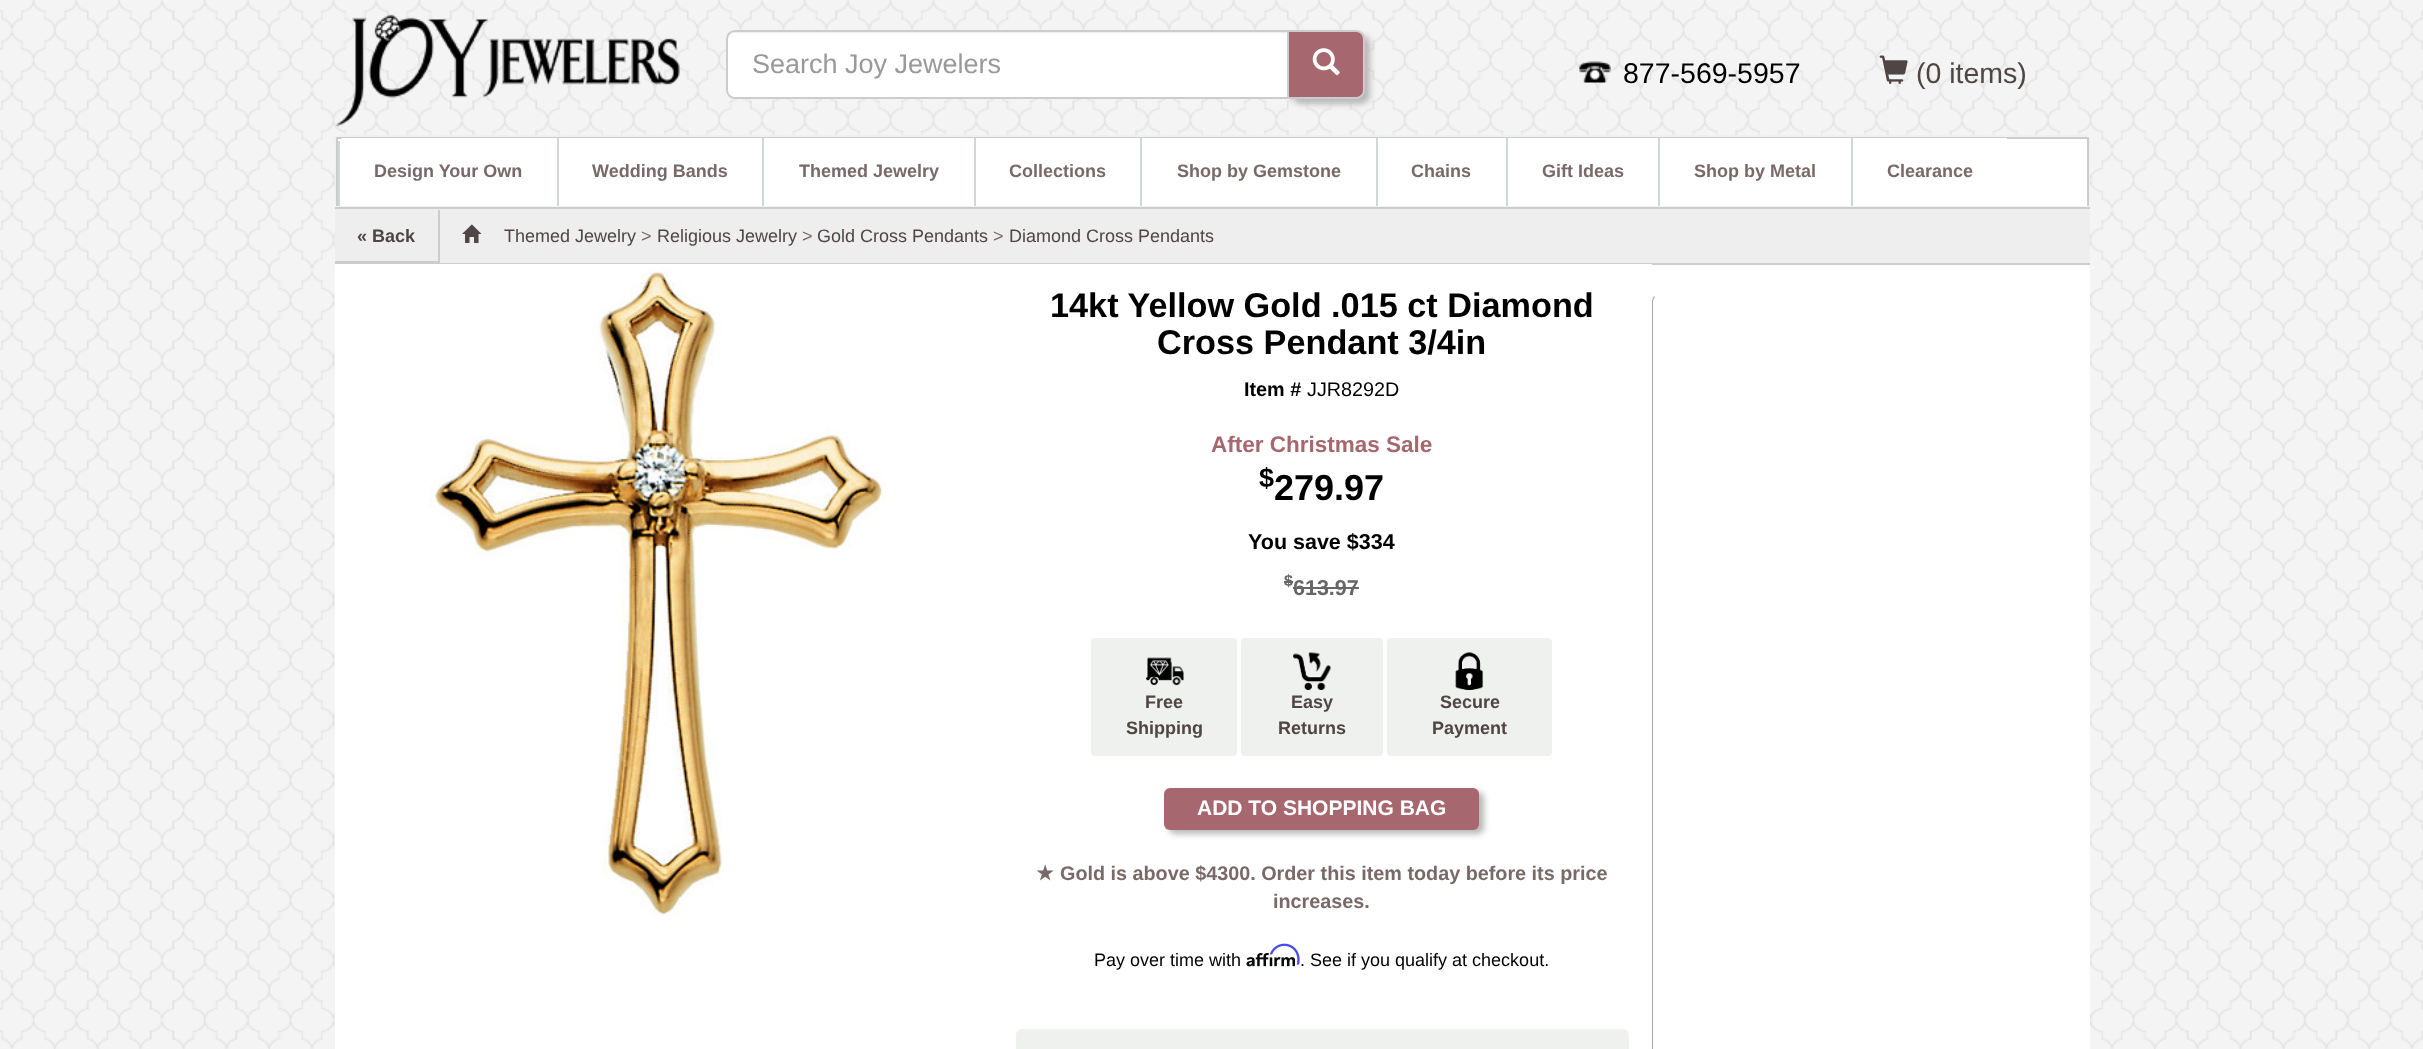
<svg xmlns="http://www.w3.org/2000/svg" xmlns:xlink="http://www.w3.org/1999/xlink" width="2423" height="1049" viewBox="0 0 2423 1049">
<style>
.cls-1{font:27px Liberation Sans;fill:#999999}
.cls-2{font:28.5px Liberation Sans;fill:#000000}
.cls-3{font:28.5px Liberation Sans;fill:#4f4545}
.cls-4{font:bold 18px Liberation Sans;fill:#796969}
.cls-5{font:bold 18px Liberation Sans;fill:#4f4545}
.cls-6{font:18px Liberation Sans;fill:#4f4545}
.cls-7{font:18px Liberation Sans;fill:#796969}
.cls-8{font:bold 34.25px Liberation Sans;fill:#000000}
.cls-9{font:bold 19.8px Liberation Sans;fill:#000000}
.cls-10{font:19.8px Liberation Sans;fill:#000000}
.cls-11{font:bold 22.5px Liberation Sans;fill:#a6676f}
.cls-12{font:bold 27px Liberation Sans;fill:#000000}
.cls-13{font:bold 36px Liberation Sans;fill:#000000}
.cls-14{font:bold 21.5px Liberation Sans;fill:#000000}
.cls-15{font:bold 16px Liberation Sans;fill:#666666}
.cls-16{font:bold 21.5px Liberation Sans;fill:#666666}
.cls-17{font:bold 21px Liberation Sans;fill:#ffffff}
.cls-18{font:bold 19.8px DejaVu Sans;fill:#796969}
.cls-19{font:bold 19.8px Liberation Sans;fill:#796969}
.cls-20{font:18px Liberation Sans;fill:#000000}
</style>
<rect width="100%" height="100%" fill="#ffffff"/>
<image xlink:href="image0.png" x="0" y="0" width="2423" height="1049"/>
<image xlink:href="image1.png" x="335" y="14" width="345" height="113"/>
<rect fill="#b5b8b6" filter="blur(3px)" x="1292" y="35" width="78" height="69" rx="9"/>
<path fill="#a6676f" stroke="#cccccc" stroke-width="2" d="M1288 31H1356C1360.5 31 1364 34.5 1364 39V90C1364 94.5 1360.5 98 1356 98H1288Z"/>
<path fill="#ffffff" d="M735 30H1289V99H735C730 99 726 95 726 90V39C726 34 730 30 735 30Z"/>
<path fill="#ececec" d="M735 33H1287V32H736C732 32 728 36 728 40C728 36 731 33 735 33Z"/>
<path fill="none" stroke="#cccccc" stroke-width="2" d="M735 31H1288V98H735C730.5 98 727 94.5 727 90V39C727 34.5 730.5 31 735 31Z"/>
<image xlink:href="image2.png" x="1312" y="48" width="28" height="28"/>
<image xlink:href="image3.png" x="1579" y="61" width="32" height="22"/>
<image xlink:href="image4.png" x="1879" y="55" width="29" height="29"/>
<rect fill="#eff1ee" x="335" y="135" width="1755" height="72" rx="6"/>
<rect fill="#ffffff" x="338" y="139" width="1749" height="67"/>
<rect fill="#cccccc" x="336" y="137" width="1752" height="2"/>
<rect fill="#cccccc" x="2087" y="137" width="2" height="69"/>
<rect fill="#cccccc" x="336" y="137" width="2" height="69"/>
<path fill="#ffffff" d="M344 138H557V206H338V144C338 140.5 340.5 138 344 138Z"/>
<rect fill="#d4d8d5" x="338" y="141" width="2" height="65"/>
<rect fill="#ffffff" x="559" y="138" width="203" height="1"/>
<rect fill="#d4d8d5" x="557" y="138" width="2" height="68"/>
<rect fill="#ffffff" x="764" y="138" width="210" height="1"/>
<rect fill="#d4d8d5" x="762" y="138" width="2" height="68"/>
<rect fill="#ffffff" x="976" y="138" width="164" height="1"/>
<rect fill="#d4d8d5" x="974" y="138" width="2" height="68"/>
<rect fill="#ffffff" x="1142" y="138" width="234" height="1"/>
<rect fill="#d4d8d5" x="1140" y="138" width="2" height="68"/>
<rect fill="#ffffff" x="1378" y="138" width="128" height="1"/>
<rect fill="#d4d8d5" x="1376" y="138" width="2" height="68"/>
<rect fill="#ffffff" x="1508" y="138" width="150" height="1"/>
<rect fill="#d4d8d5" x="1506" y="138" width="2" height="68"/>
<rect fill="#ffffff" x="1660" y="138" width="191" height="1"/>
<rect fill="#d4d8d5" x="1658" y="138" width="2" height="68"/>
<rect fill="#ffffff" x="1853" y="138" width="154" height="1"/>
<rect fill="#d4d8d5" x="1851" y="138" width="2" height="68"/>
<rect fill="#eeeeee" x="335" y="209" width="1755" height="54"/>
<rect fill="#cccccc" x="335" y="207" width="1755" height="2"/>
<rect fill="#cccccc" x="335" y="263" width="1755" height="2"/>
<rect fill="#cccccc" x="438" y="210" width="2" height="53"/>
<rect fill="#cccccc" x="335" y="261" width="105" height="2"/>
<image xlink:href="image5.png" x="462" y="224" width="20" height="19"/>
<rect fill="#ffffff" x="1652" y="265" width="438" height="784"/>
<rect fill="#ffffff" x="335" y="264" width="1317" height="785"/>
<image xlink:href="image6.png" x="334" y="267" width="552" height="650"/>
<rect fill="#666666" x="1284" y="581" width="9" height="2"/>
<rect fill="#666666" x="1293" y="587" width="66" height="2"/>
<rect fill="#eff1ee" stroke="#ffffff" stroke-width="2" x="1090" y="637" width="148" height="120" rx="5"/>
<image xlink:href="image7.png" x="1146" y="657" width="38" height="29"/>
<rect fill="#eff1ee" stroke="#ffffff" stroke-width="2" x="1240" y="637" width="144" height="120" rx="5"/>
<image xlink:href="image8.png" x="1293" y="652" width="38" height="38"/>
<rect fill="#eff1ee" stroke="#ffffff" stroke-width="2" x="1386" y="637" width="167" height="120" rx="5"/>
<image xlink:href="image9.png" x="1455" y="652" width="29" height="38"/>
<rect fill="#b5b8b6" filter="blur(3px)" x="1169" y="792" width="315" height="42" rx="6"/>
<rect fill="#a6676f" x="1164" y="788" width="315" height="42" rx="6"/>
<image xlink:href="image11.png" x="1246" y="953" width="49" height="14"/>
<image xlink:href="image10.png" x="1269" y="943" width="31" height="22"/>
<rect fill="#eff1ee" stroke="#eff1ee" stroke-width="2" x="1017" y="1030" width="611" height="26" rx="5"/>
<path fill="#aaaaaa" d="M1655 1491L1654 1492C1653 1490 1652 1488 1652 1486V302C1652 300 1653 298 1654 296L1655 297C1654 298 1653 300 1653 302V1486C1653 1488 1654 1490 1655 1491Z"/>
<text class="cls-1" x="752" y="73">Search Joy Jewelers</text>
<text class="cls-2" x="1623" y="83">877-569-5957</text>
<text class="cls-3" x="1916" y="83">(0 items)</text>
<text class="cls-4" x="374" y="177">Design Your Own</text>
<text class="cls-4" x="592" y="177">Wedding Bands</text>
<text class="cls-4" x="799" y="177">Themed Jewelry</text>
<text class="cls-4" x="1009" y="177">Collections</text>
<text class="cls-4" x="1177" y="177">Shop by Gemstone</text>
<text class="cls-4" x="1411" y="177">Chains</text>
<text class="cls-4" x="1542" y="177">Gift Ideas</text>
<text class="cls-4" x="1694" y="177">Shop by Metal</text>
<text class="cls-4" x="1887" y="177">Clearance</text>
<text class="cls-5" x="357" y="242">« Back</text>
<text class="cls-6" x="504" y="242">Themed Jewelry</text>
<text class="cls-7" x="641" y="242">&gt;</text>
<text class="cls-6" x="657" y="242">Religious Jewelry</text>
<text class="cls-7" x="802" y="242">&gt;</text>
<text class="cls-6" x="817" y="242">Gold Cross Pendants</text>
<text class="cls-7" x="993" y="242">&gt;</text>
<text class="cls-6" x="1009" y="242">Diamond Cross Pendants</text>
<text class="cls-8" x="1050" y="317">14kt Yellow Gold .015 ct Diamond</text>
<text class="cls-8" x="1157" y="354">Cross Pendant 3/4in</text>
<text class="cls-9" x="1244" y="396">Item #</text>
<text class="cls-10" x="1307" y="396">JJR8292D</text>
<text class="cls-11" x="1211" y="452">After Christmas Sale</text>
<text class="cls-12" x="1259" y="487">$</text>
<text class="cls-13" x="1274" y="500">279.97</text>
<text class="cls-14" x="1248" y="549">You save $334</text>
<text class="cls-15" x="1284" y="586">$</text>
<text class="cls-16" x="1293" y="595">613.97</text>
<text class="cls-5" x="1145" y="708">Free</text>
<text class="cls-5" x="1126" y="734">Shipping</text>
<text class="cls-5" x="1291" y="708">Easy</text>
<text class="cls-5" x="1278" y="734">Returns</text>
<text class="cls-5" x="1440" y="708">Secure</text>
<text class="cls-5" x="1432" y="734">Payment</text>
<text class="cls-17" x="1197" y="815">ADD TO SHOPPING BAG</text>
<text class="cls-18" x="1036" y="880">★</text>
<text class="cls-19" x="1060" y="880">Gold is above $4300. Order this item today before its price</text>
<text class="cls-19" x="1273" y="908">increases.</text>
<text class="cls-20" x="1094" y="966">Pay over time with</text>
<text class="cls-20" x="1300" y="966">. See if you qualify at checkout.</text>
</svg>
